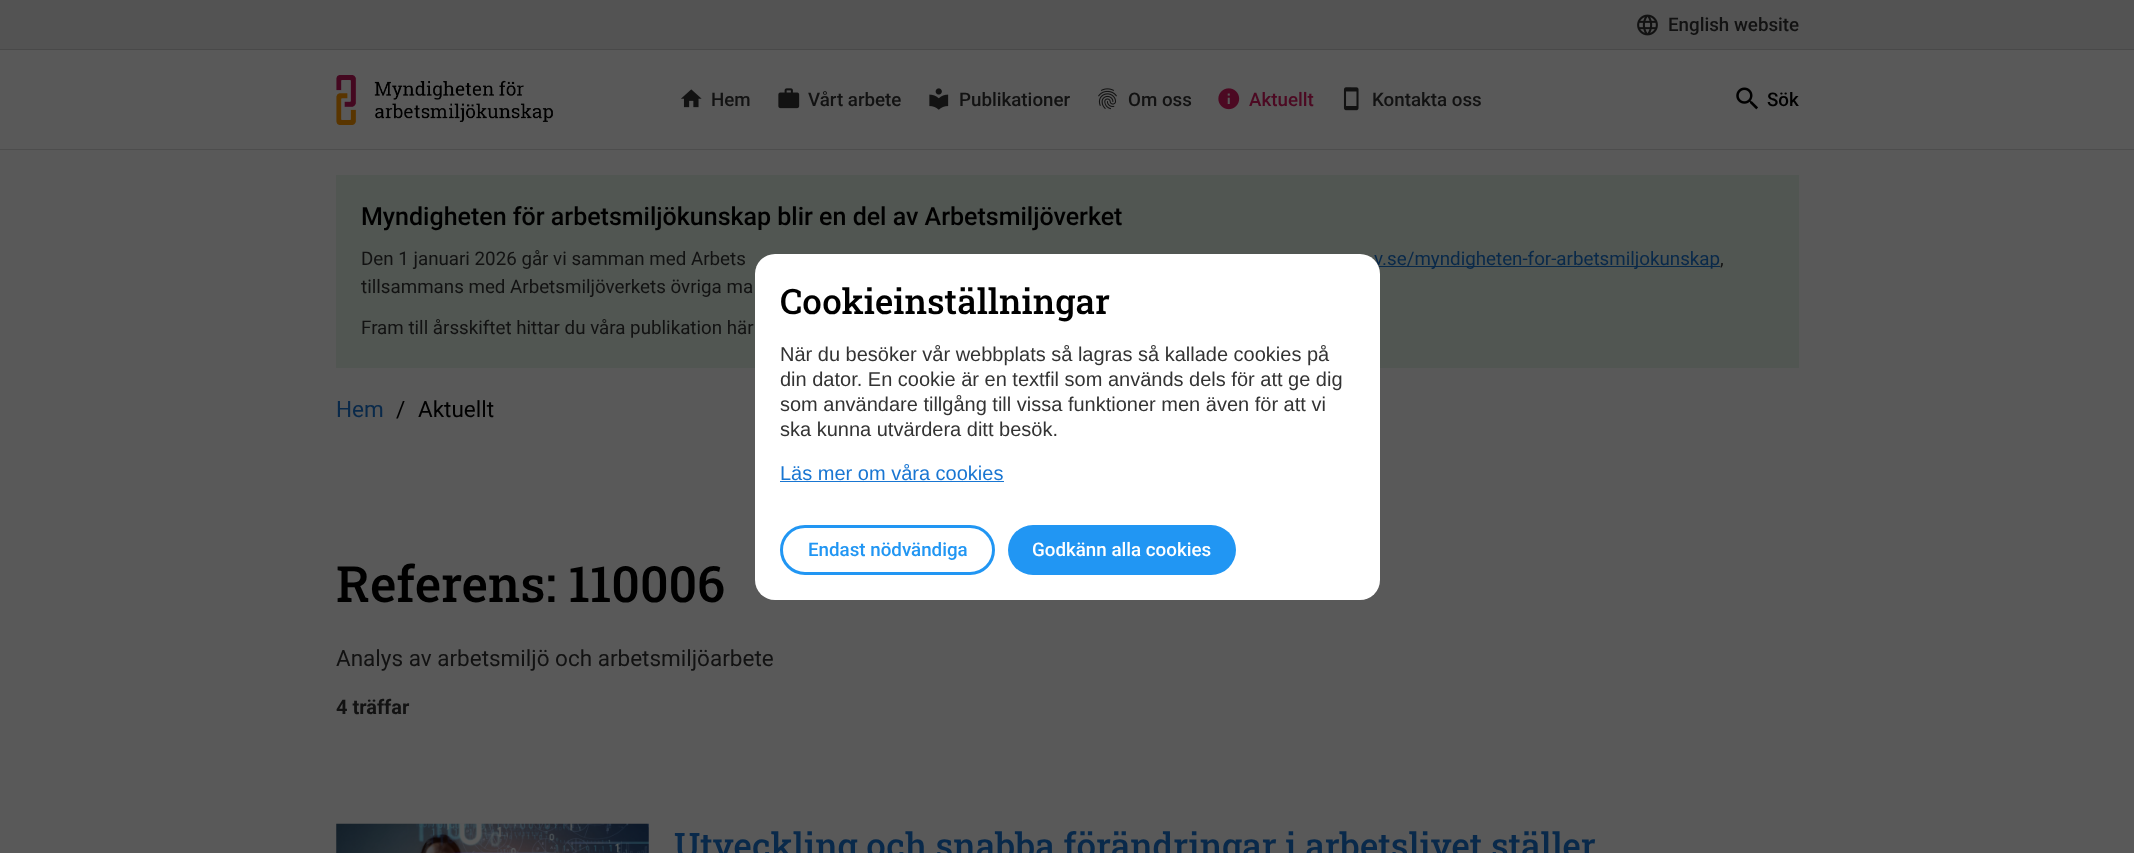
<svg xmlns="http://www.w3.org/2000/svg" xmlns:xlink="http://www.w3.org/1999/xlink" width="2134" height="853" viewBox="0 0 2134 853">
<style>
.cls-1{font:500 18.75px Roboto;fill:#121212}
.cls-2{font:500 18.75px Roboto;fill:#4c0922}
.cls-3{font:500 18.75px Roboto;fill:#000000}
.cls-4{font:500 25px Roboto;fill:#000000}
.cls-5{font:18.75px Roboto;fill:#121212}
.cls-6{font:18.75px Roboto;fill:#09294a}
.cls-7{font:22.5px Roboto;fill:#09294a}
.cls-8{font:22.5px Roboto;fill:#000000}
.cls-9{font:500 50px Roboto Slab;fill:#000000}
.cls-10{font:22.5px Roboto;fill:#121212}
.cls-11{font:bold 20px Roboto;fill:#121212}
.cls-12{font:500 35px Roboto Slab;fill:#09294a}
.cls-13{font:500 35px Roboto Slab;fill:#000000}
.cls-14{font:20px Liberation Sans;fill:#333333}
.cls-15{font:20px Liberation Sans;fill:#1976d2}
.cls-16{font:500 18.75px Roboto;fill:#2196f3}
.cls-17{font:500 18.75px Roboto;fill:#ffffff}
</style>
<rect width="100%" height="100%" fill="#595959"/>
<rect fill="#535353" x="0" y="0" width="2134" height="49"/>
<rect fill="#494949" x="0" y="49" width="2134" height="1"/>
<image xlink:href="image0.png" x="1637" y="14" width="21" height="22"/>
<rect fill="#4d4d4d" x="0" y="149" width="2134" height="1"/>
<image xlink:href="image1.png" x="336" y="75" width="217" height="50"/>
<image xlink:href="image2.png" x="681" y="89" width="21" height="19"/>
<image xlink:href="image3.png" x="778" y="88" width="22" height="21"/>
<image xlink:href="image4.png" x="929" y="88" width="20" height="22"/>
<image xlink:href="image5.png" x="1098" y="88" width="19" height="22"/>
<image xlink:href="image6.png" x="1218" y="88" width="22" height="22"/>
<image xlink:href="image7.png" x="1343" y="87" width="16" height="24"/>
<image xlink:href="image8.png" x="1736" y="87" width="22" height="23"/>
<rect fill="#515652" x="336" y="175" width="1463" height="193"/>
<rect fill="#09294a" x="1378" y="266" width="342" height="1"/>
<image xlink:href="image9.png" x="336" y="823" width="313" height="30"/>
<text class="cls-1" x="1668" y="31">English website</text>
<text class="cls-1" x="711" y="106">Hem</text>
<text class="cls-1" x="808" y="106">Vårt arbete</text>
<text class="cls-1" x="959" y="106">Publikationer</text>
<text class="cls-1" x="1128" y="106">Om oss</text>
<text class="cls-2" x="1249" y="106">Aktuellt</text>
<text class="cls-1" x="1372" y="106">Kontakta oss</text>
<text class="cls-3" x="1767" y="106">Sök</text>
<text class="cls-4" x="361" y="225">Myndigheten för arbetsmiljökunskap blir en del av Arbetsmiljöverket</text>
<text class="cls-5" x="361" y="265">Den 1 januari 2026 går vi samman med Arbets</text>
<text class="cls-6" x="1374" y="265">v.se/myndigheten-for-arbetsmiljokunskap</text>
<text class="cls-5" x="1720" y="265">,</text>
<text class="cls-5" x="361" y="293">tillsammans med Arbetsmiljöverkets övriga ma</text>
<text class="cls-5" x="361" y="334">Fram till årsskiftet hittar du våra publikation här</text>
<text class="cls-7" x="336" y="417">Hem</text>
<text class="cls-8" x="396" y="417">/</text>
<text class="cls-8" x="418" y="417">Aktuellt</text>
<text class="cls-9" x="336" y="602">Referens: 110006</text>
<text class="cls-10" x="336" y="666">Analys av arbetsmiljö och arbetsmiljöarbete</text>
<text class="cls-11" x="336" y="714">4 träffar</text>
<text class="cls-12" x="674" y="858">Utveckling och snabba förändringar i arbetslivet ställer</text>
<rect fill="#ffffff" x="755" y="254" width="625" height="346" rx="20"/>
<text class="cls-13" x="780" y="314">Cookieinställningar</text>
<text class="cls-14"><tspan x="780" y="361">När du besöker vår webbplats så lagras så kallade cookies på</tspan><tspan x="780" y="386">din dator. En cookie är en textfil som används dels för att ge dig</tspan><tspan x="780" y="411">som användare tillgång till vissa funktioner men även för att vi</tspan><tspan x="780" y="436">ska kunna utvärdera ditt besök.</tspan></text>
<text class="cls-15" x="780" y="480">Läs mer om våra cookies</text>
<rect fill="#1976d2" x="780" y="481" width="224" height="1"/>
<rect fill="none" stroke="#2196f3" stroke-width="3" x="781.5" y="526.5" width="212" height="47" rx="23.5"/>
<text class="cls-16" x="808" y="556">Endast nödvändiga</text>
<rect fill="#2196f3" x="1008" y="525" width="228" height="50" rx="25"/>
<text class="cls-17" x="1032" y="556">Godkänn alla cookies</text>
</svg>
